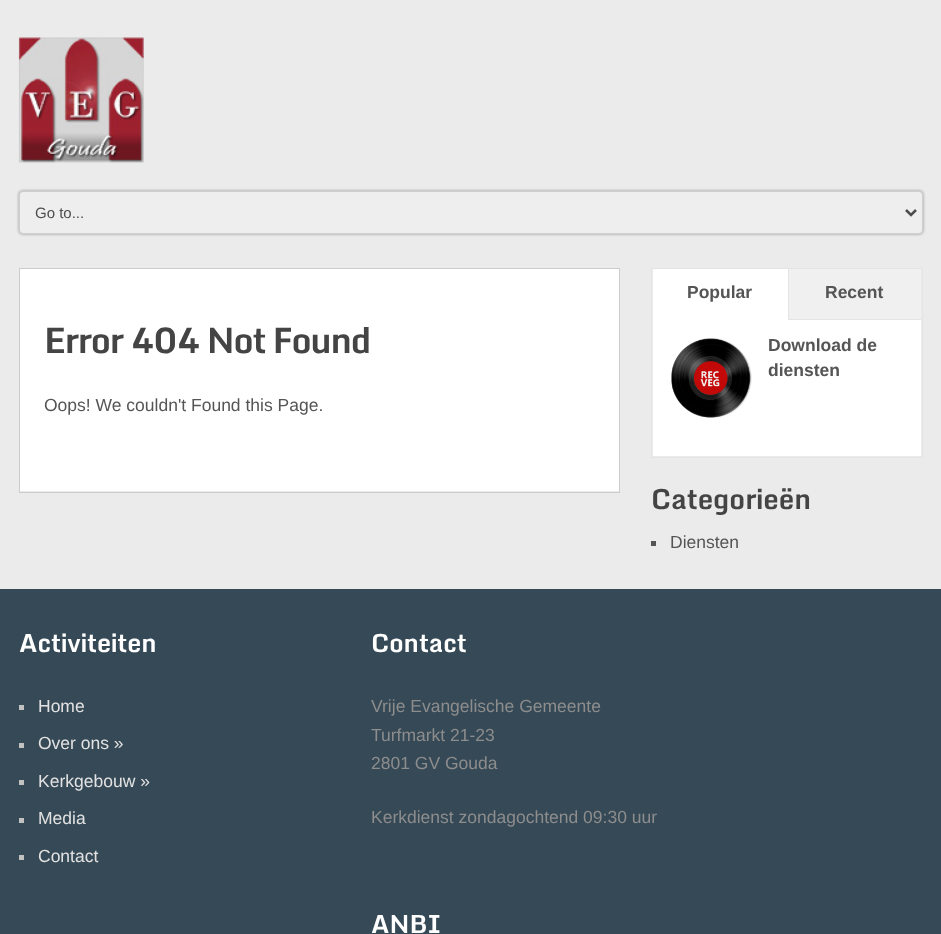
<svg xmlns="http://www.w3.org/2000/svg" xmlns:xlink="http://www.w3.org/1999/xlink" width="941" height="934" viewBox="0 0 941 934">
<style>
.cls-1{font:15px Liberation Sans;fill:#4d4d4d}
.cls-2{font:bold 35px Monda;letter-spacing:-1.25px;fill:#444444}
.cls-3{font:17.5px Liberation Sans;fill:#555555}
.cls-4{font:bold 17.5px Liberation Sans;fill:#555555}
.cls-5{font:bold 27.5px Monda;fill:#444444}
.cls-6{font:bold 25px Monda;fill:#ffffff}
.cls-7{font:17.5px Liberation Sans;fill:#e2e2e2}
.cls-8{font:17.5px Liberation Sans;fill:#8d8d8d}
</style>
<rect width="100%" height="100%" fill="#ebebeb"/>
<image xlink:href="image0.png" x="18" y="37" width="126" height="126"/>
<rect fill="#000000" fill-opacity="0.2" filter="blur(1px)" x="18" y="190" width="906" height="45" rx="5"/>
<rect fill="#eeeeee" stroke="#cfcfcf" x="19.5" y="191.5" width="903" height="42" rx="3.5"/>
<path fill="none" stroke="#4d4d4d" stroke-width="2.5" d="M906 210L911 215L916 210"/>
<rect fill="none" stroke="#cccccc" x="19.5" y="268.5" width="600" height="224"/>
<rect fill="#ffffff" x="20" y="269" width="599" height="222"/>
<rect fill="none" stroke="#e4e4e4" x="651.5" y="268.5" width="271" height="189"/>
<rect fill="#ffffff" x="653" y="269" width="135" height="51"/>
<rect fill="#f0f0f0" x="789" y="269" width="132" height="50"/>
<rect fill="#e4e4e4" x="788" y="319" width="133" height="1"/>
<rect fill="#e4e4e4" x="788" y="269" width="1" height="51"/>
<rect fill="#ffffff" x="653" y="320" width="268" height="136"/>
<image xlink:href="image1.png" x="671" y="338" width="81" height="80"/>
<rect fill="#555555" x="651" y="541" width="5" height="5"/>
<rect fill="#364956" x="0" y="589" width="941" height="345"/>
<rect fill="#c2c2c2" x="19" y="705" width="5" height="5"/>
<rect fill="#c2c2c2" x="19" y="743" width="5" height="5"/>
<rect fill="#c2c2c2" x="19" y="780" width="5" height="5"/>
<rect fill="#c2c2c2" x="19" y="818" width="5" height="5"/>
<rect fill="#c2c2c2" x="19" y="855" width="5" height="5"/>
<text class="cls-1" x="35" y="218">Go to...</text>
<text class="cls-2" x="44" y="353">Error 404 Not Found</text>
<text class="cls-3" x="44" y="411">Oops! We couldn't Found this Page.</text>
<text class="cls-4" x="687" y="298">Popular</text>
<text class="cls-4" x="825" y="298">Recent</text>
<text class="cls-4"><tspan x="768" y="351">Download de</tspan><tspan x="768" y="376">diensten</tspan></text>
<text class="cls-5" x="651" y="509">Categorieën</text>
<text class="cls-3" x="670" y="548">Diensten</text>
<text class="cls-6" x="19" y="652">Activiteiten</text>
<text class="cls-7" x="38" y="712">Home</text>
<text class="cls-7" x="38" y="749">Over ons »</text>
<text class="cls-7" x="38" y="787">Kerkgebouw »</text>
<text class="cls-7" x="38" y="824">Media</text>
<text class="cls-7" x="38" y="862">Contact</text>
<text class="cls-6" x="371" y="652">Contact</text>
<text class="cls-8"><tspan x="371" y="712">Vrije Evangelische Gemeente</tspan><tspan x="371" y="741">Turfmarkt 21-23</tspan><tspan x="371" y="769">2801 GV Gouda</tspan></text>
<text class="cls-8" x="371" y="823">Kerkdienst zondagochtend 09:30 uur</text>
<text class="cls-6" x="371" y="933">ANBI</text>
</svg>
